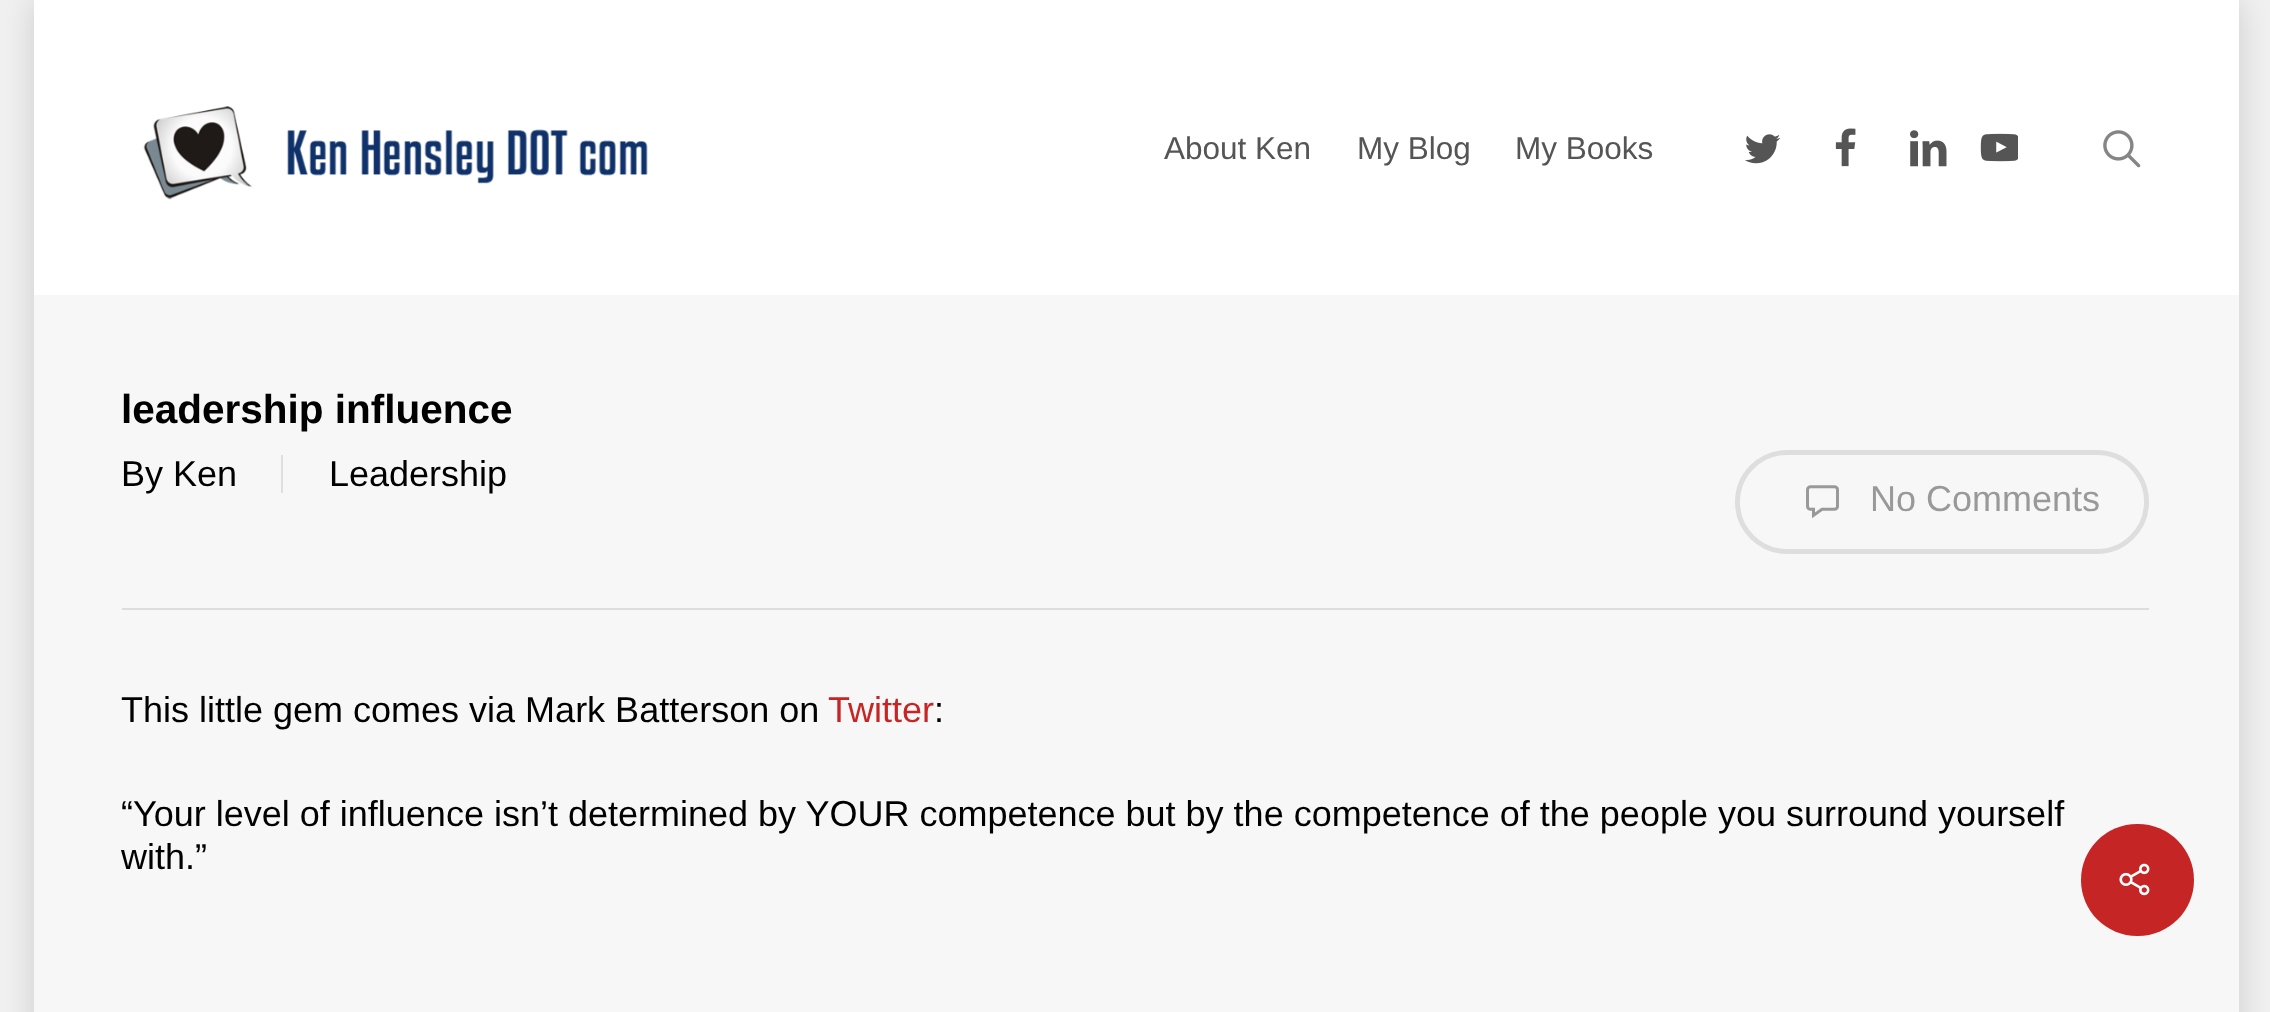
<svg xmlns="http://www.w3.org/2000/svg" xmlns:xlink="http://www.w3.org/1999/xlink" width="2270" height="1012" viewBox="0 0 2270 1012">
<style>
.cls-1{font:31.5px Liberation Sans;fill:#555555}
.cls-2{font:bold 40.5px Liberation Sans;fill:#000000}
.cls-3{font:36px Liberation Sans;fill:#000000}
.cls-4{font:36px Liberation Sans;fill:#999999}
.cls-5{font:36px Liberation Sans;fill:#c62525}
</style>
<rect width="100%" height="100%" fill="#f1f1f1"/>
<rect fill="#000000" fill-opacity="0.15" filter="blur(17px)" x="34" y="0" width="2205" height="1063"/>
<rect fill="#ffffff" x="34" y="0" width="2205" height="295"/>
<image xlink:href="image0.png" x="143" y="106" width="505" height="94"/>
<image xlink:href="image1.png" x="1745" y="134" width="36" height="30"/>
<image xlink:href="image2.png" x="1835" y="128" width="21" height="39"/>
<image xlink:href="image3.png" x="1910" y="130" width="37" height="37"/>
<image xlink:href="image4.png" x="1980" y="133" width="38" height="29"/>
<image xlink:href="image5.png" x="2103" y="130" width="38" height="38"/>
<rect fill="#f7f7f7" x="34" y="295" width="2205" height="717"/>
<rect fill="#dddddd" x="122" y="608" width="2027" height="2"/>
<rect fill="#dedede" x="281" y="455" width="2" height="38"/>
<rect fill="none" stroke="#dedede" stroke-width="5" x="1737.5" y="452.5" width="409" height="99" rx="49.5"/>
<image xlink:href="image6.png" x="1806" y="485" width="33" height="33"/>
<rect fill="#c62525" x="2081" y="824" width="113" height="112" rx="56"/>
<image xlink:href="image7.png" x="2119" y="863" width="31" height="33"/>
<text class="cls-1" x="1164" y="159">About Ken</text>
<text class="cls-1" x="1357" y="159">My Blog</text>
<text class="cls-1" x="1515" y="159">My Books</text>
<text class="cls-2" x="121" y="423">leadership influence</text>
<text class="cls-3" x="121" y="486">By</text>
<text class="cls-3" x="173" y="486">Ken</text>
<text class="cls-3" x="329" y="486">Leadership</text>
<text class="cls-4" x="1870" y="511">No Comments</text>
<text class="cls-3" x="121" y="722">This little gem comes via Mark Batterson on</text>
<text class="cls-5" x="828" y="722">Twitter</text>
<text class="cls-3" x="934" y="722">:</text>
<text class="cls-3"><tspan x="121" y="826">“Your level of influence isn’t determined by YOUR competence but by the competence of the people you surround yourself</tspan><tspan x="121" y="869">with.”</tspan></text>
</svg>
